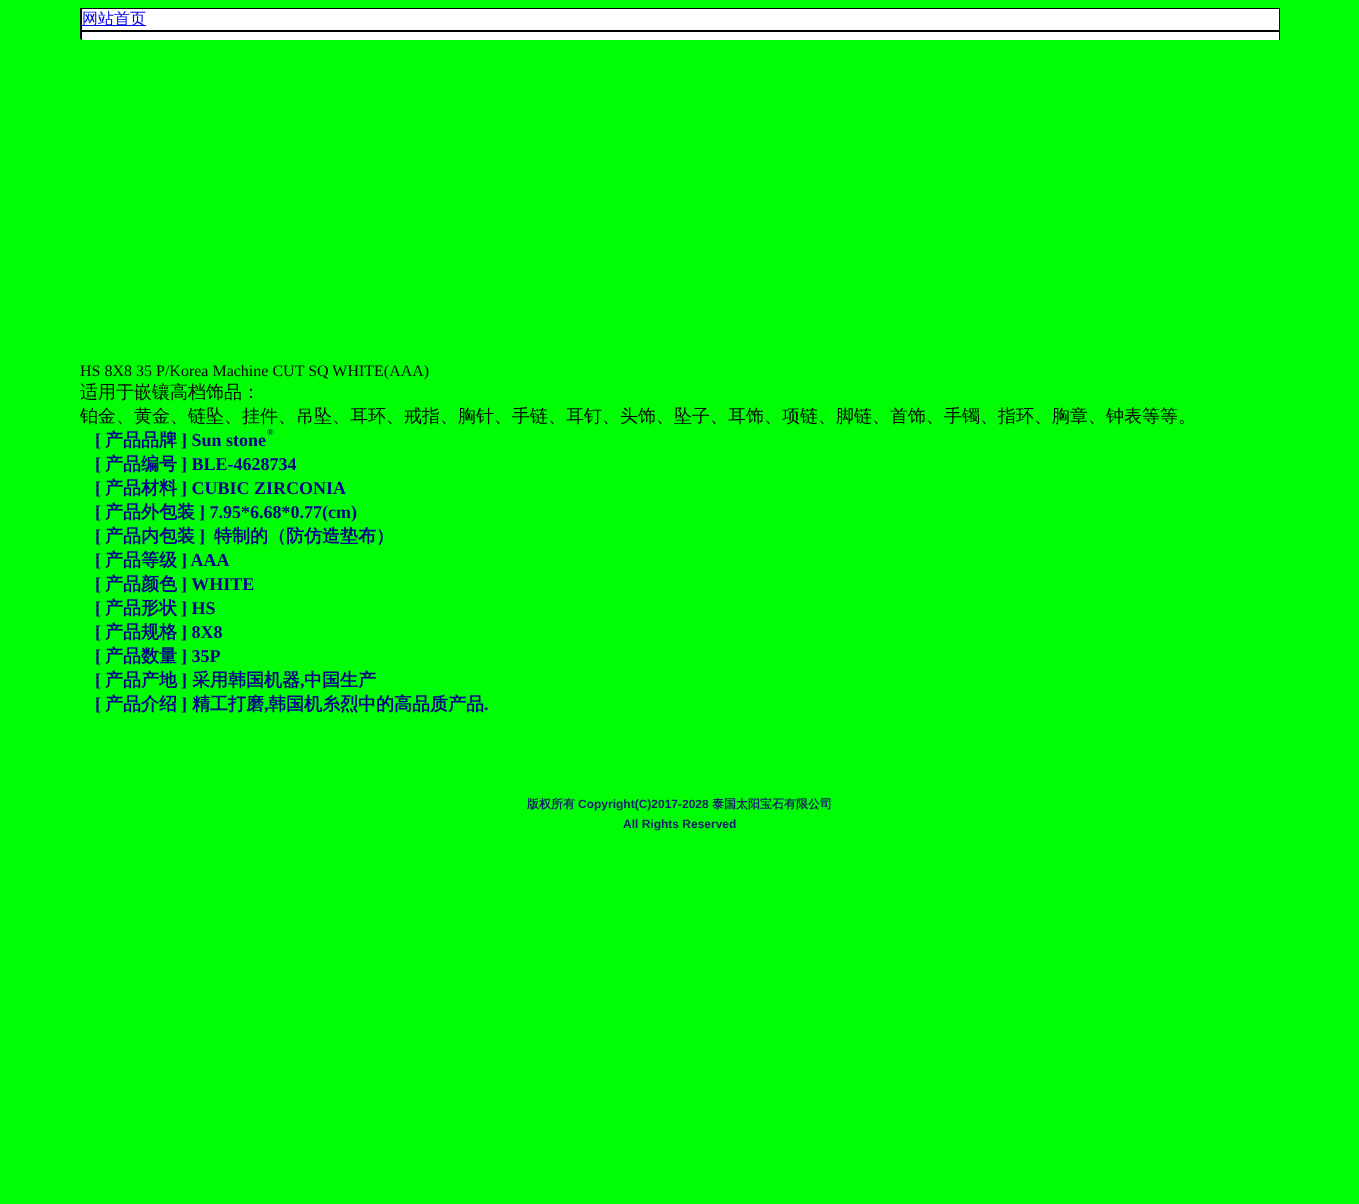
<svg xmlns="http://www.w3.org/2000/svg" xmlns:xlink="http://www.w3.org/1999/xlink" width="1359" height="1204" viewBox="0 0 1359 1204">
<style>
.cls-1{font:500 16px WenQuanYi Zen Hei;fill:#0000ee}
.cls-2{font:16px Liberation Serif;fill:#000000}
.cls-3{font:500 18px WenQuanYi Zen Hei;fill:#000000}
.cls-4{font:bold 18px Liberation Serif;fill:#00008b}
.cls-5{font:bold 18px WenQuanYi Zen Hei;fill:#00008b}
.cls-6{font:bold 9px Liberation Serif;fill:#00008b}
.cls-7{font:bold 12px WenQuanYi Zen Hei;fill:#191970}
.cls-8{font:bold 12px Liberation Sans;fill:#191970}
</style>
<defs>
<clipPath id="clip1"><rect x="80" y="8" width="1200" height="32"/></clipPath>
</defs>
<rect width="100%" height="100%" fill="#00ff04"/>
<rect fill="#000000" x="80" y="8" width="1" height="31"/>
<rect fill="#ffffff" stroke="#000000" x="81.5" y="8.5" width="1198" height="22"/>
<rect fill="#0000ee" x="82" y="25" width="64" height="1"/>
<rect fill="#ffffff" x="82" y="32" width="1197" height="8"/>
<g clip-path="url(#clip1)">
<rect fill="none" stroke="#000000" x="81.5" y="31.5" width="1198" height="22"/>
</g>
<text class="cls-1" x="82" y="24">网站首页</text>
<text class="cls-2" x="80" y="376">HS 8X8 35 P/Korea Machine CUT SQ WHITE(AAA)</text>
<text class="cls-3"><tspan x="80" y="398">适用于嵌镶高档饰品：</tspan><tspan x="80" y="422">铂金、黄金、链坠、挂件、吊坠、耳环、戒指、胸针、手链、耳钉、头饰、坠子、耳饰、项链、脚链、首饰、手镯、指环、胸章、钟表等等。</tspan></text>
<text class="cls-4" x="95" y="446">[</text>
<text class="cls-5" x="105" y="446">产品品牌</text>
<text class="cls-4" x="181" y="446">] Sun stone</text>
<text class="cls-6" x="267" y="435">®</text>
<text class="cls-4" x="95" y="470">[</text>
<text class="cls-5" x="105" y="470">产品编号</text>
<text class="cls-4" x="181" y="470">] BLE-4628734</text>
<text class="cls-4" x="95" y="494">[</text>
<text class="cls-5" x="105" y="494">产品材料</text>
<text class="cls-4" x="181" y="494">] CUBIC ZIRCONIA</text>
<text class="cls-4" x="95" y="518">[</text>
<text class="cls-5" x="105" y="518">产品外包装</text>
<text class="cls-4" x="199" y="518">] 7.95*6.68*0.77(cm)</text>
<text class="cls-4" x="95" y="542">[</text>
<text class="cls-5" x="105" y="542">产品内包装</text>
<text class="cls-4" x="199" y="542">]</text>
<text class="cls-5" x="214" y="542">特制的（防仿造垫布）</text>
<text class="cls-4" x="95" y="566">[</text>
<text class="cls-5" x="105" y="566">产品等级</text>
<text class="cls-4" x="181" y="566">] AAA</text>
<text class="cls-4" x="95" y="590">[</text>
<text class="cls-5" x="105" y="590">产品颜色</text>
<text class="cls-4" x="181" y="590">] WHITE</text>
<text class="cls-4" x="95" y="614">[</text>
<text class="cls-5" x="105" y="614">产品形状</text>
<text class="cls-4" x="181" y="614">] HS</text>
<text class="cls-4" x="95" y="638">[</text>
<text class="cls-5" x="105" y="638">产品规格</text>
<text class="cls-4" x="181" y="638">] 8X8</text>
<text class="cls-4" x="95" y="662">[</text>
<text class="cls-5" x="105" y="662">产品数量</text>
<text class="cls-4" x="181" y="662">] 35P</text>
<text class="cls-4" x="95" y="686">[</text>
<text class="cls-5" x="105" y="686">产品产地</text>
<text class="cls-4" x="181" y="686">]</text>
<text class="cls-5" x="192" y="686">采用韩国机器</text>
<text class="cls-4" x="300" y="686">,</text>
<text class="cls-5" x="304" y="686">中国生产</text>
<text class="cls-4" x="95" y="710">[</text>
<text class="cls-5" x="105" y="710">产品介绍</text>
<text class="cls-4" x="181" y="710">]</text>
<text class="cls-5" x="192" y="710">精工打磨</text>
<text class="cls-4" x="264" y="710">,</text>
<text class="cls-5" x="268" y="710">韩国机糸烈中的高品质产品</text>
<text class="cls-4" x="484" y="710">.</text>
<text class="cls-7" x="527" y="808">版权所有</text>
<text class="cls-8" x="578" y="808">Copyright(C)2017-2028</text>
<text class="cls-7" x="712" y="808">泰国太阳宝石有限公司</text>
<text class="cls-8" x="623" y="828">All Rights Reserved</text>
</svg>
